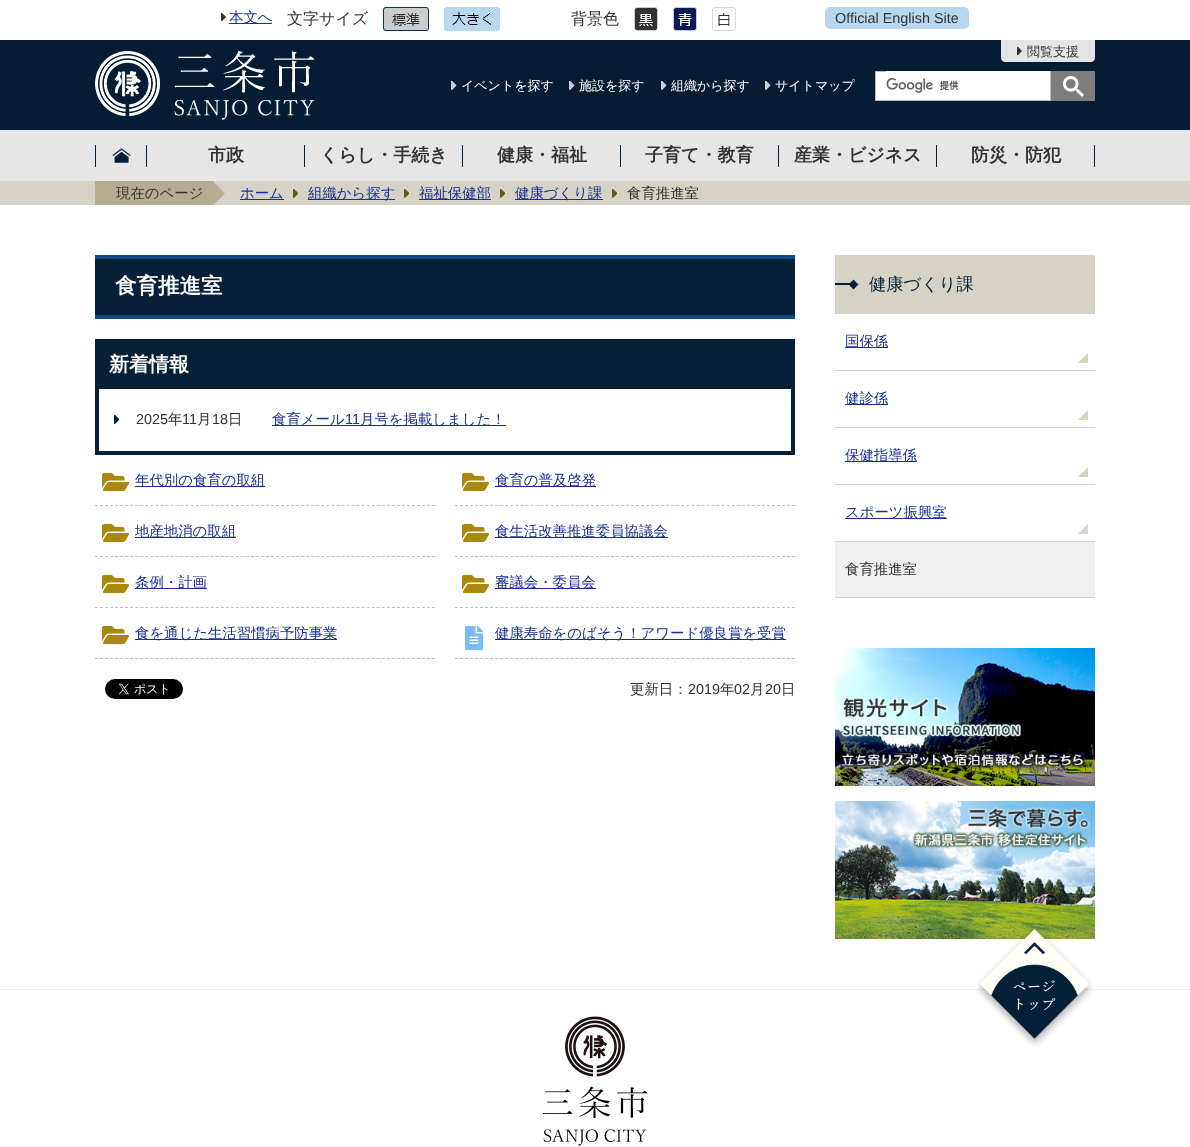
<svg xmlns="http://www.w3.org/2000/svg" xmlns:xlink="http://www.w3.org/1999/xlink" width="1190" height="1147" viewBox="0 0 1190 1147">
<style>
.cls-1{font:500 14.4px WenQuanYi Zen Hei;fill:#183094}
.cls-2{font:500 16px WenQuanYi Zen Hei;fill:#333333}
.cls-3{font:14.4px Liberation Sans;fill:#333333}
.cls-4{font:500 13px WenQuanYi Zen Hei;fill:#333333}
.cls-5{font:500 13px WenQuanYi Zen Hei;fill:#ffffff}
.cls-6{font:bold 18px WenQuanYi Zen Hei;fill:#333333}
.cls-7{font:500 14.4px WenQuanYi Zen Hei;fill:#333333}
.cls-8{font:bold 21.5px WenQuanYi Zen Hei;fill:#ffffff}
.cls-9{font:bold 20px WenQuanYi Zen Hei;fill:#ffffff}
.cls-10{font:14.4px Liberation Sans;fill:#183094}
.cls-11{font:500 17.25px WenQuanYi Zen Hei;fill:#062037}
</style>
<rect width="100%" height="100%" fill="#ffffff"/>
<image xlink:href="image0.png" x="221" y="13" width="5" height="8"/>
<rect fill="#183094" x="229" y="23" width="43" height="1"/>
<image xlink:href="image1.png" x="383" y="7" width="46" height="24"/>
<image xlink:href="image2.png" x="444" y="7" width="56" height="24"/>
<image xlink:href="image3.png" x="634" y="7" width="24" height="24"/>
<image xlink:href="image4.png" x="673" y="7" width="24" height="24"/>
<image xlink:href="image5.png" x="712" y="7" width="24" height="24"/>
<rect fill="#b8d6ed" x="825" y="7" width="144" height="22" rx="5"/>
<rect fill="#051d34" x="0" y="40" width="1190" height="90"/>
<path fill="#e5e5e5" d="M1001 40H1095V58C1095 60 1093 62 1091 62H1005C1003 62 1001 60 1001 58Z"/>
<image xlink:href="image6.png" x="1017" y="47" width="5" height="8"/>
<image xlink:href="image7.png" x="95" y="50" width="220" height="70"/>
<image xlink:href="image8.png" x="451" y="81" width="6" height="9"/>
<image xlink:href="image8.png" x="569" y="81" width="6" height="9"/>
<image xlink:href="image8.png" x="661" y="81" width="6" height="9"/>
<image xlink:href="image8.png" x="765" y="81" width="6" height="9"/>
<rect fill="#ffffff" x="876" y="72" width="10" height="28"/>
<rect fill="none" stroke="#bfbfbf" x="875.5" y="71.5" width="175" height="29"/>
<rect fill="#ffffff" x="886" y="71" width="164" height="29"/>
<image xlink:href="image9.png" x="886" y="78" width="73" height="15"/>
<rect fill="#7d7d7d" x="1051" y="71" width="44" height="30"/>
<image xlink:href="image10.png" x="1063" y="76" width="21" height="21"/>
<rect fill="#e6e6e6" x="0" y="130" width="1190" height="51"/>
<image xlink:href="image11.png" x="111" y="147" width="21" height="17"/>
<rect fill="#041f38" x="146" y="145" width="1" height="22"/>
<rect fill="#041f38" x="95" y="145" width="1" height="22"/>
<rect fill="#041f38" x="304" y="145" width="1" height="22"/>
<rect fill="#041f38" x="462" y="145" width="1" height="22"/>
<rect fill="#041f38" x="620" y="145" width="1" height="22"/>
<rect fill="#041f38" x="778" y="145" width="1" height="22"/>
<rect fill="#041f38" x="936" y="145" width="1" height="22"/>
<rect fill="#041f38" x="1094" y="145" width="1" height="22"/>
<rect fill="#d6d2c5" x="0" y="181" width="1190" height="24"/>
<image xlink:href="image12.png" x="95" y="181" width="130" height="24"/>
<rect fill="#183094" x="240" y="199" width="44" height="1"/>
<image xlink:href="image13.png" x="293" y="189" width="5" height="9"/>
<rect fill="#183094" x="308" y="199" width="87" height="1"/>
<image xlink:href="image13.png" x="404" y="189" width="5" height="9"/>
<rect fill="#183094" x="419" y="199" width="72" height="1"/>
<image xlink:href="image13.png" x="500" y="189" width="5" height="9"/>
<rect fill="#183094" x="515" y="199" width="88" height="1"/>
<image xlink:href="image13.png" x="612" y="189" width="5" height="9"/>
<rect fill="#0f4883" x="95" y="255" width="700" height="64"/>
<rect fill="#062037" x="95" y="259" width="700" height="56"/>
<rect fill="#062037" x="95" y="339" width="700" height="50"/>
<rect fill="#062037" x="791" y="389" width="4" height="66"/>
<rect fill="#062037" x="95" y="451" width="700" height="4"/>
<rect fill="#062037" x="95" y="389" width="4" height="66"/>
<image xlink:href="image14.png" x="114" y="415" width="5" height="9"/>
<rect fill="#183094" x="272" y="425" width="234" height="1"/>
<image xlink:href="image15.png" x="102" y="472" width="27" height="20"/>
<path fill="none" stroke="#bfbfbf" stroke-dasharray="3 2.03" d="M95 505.5H435"/>
<rect fill="#183094" x="135" y="486" width="130" height="1"/>
<image xlink:href="image15.png" x="462" y="472" width="27" height="20"/>
<path fill="none" stroke="#bfbfbf" stroke-dasharray="3 2.03" d="M455 505.5H795"/>
<rect fill="#183094" x="495" y="486" width="101" height="1"/>
<image xlink:href="image15.png" x="102" y="523" width="27" height="20"/>
<path fill="none" stroke="#bfbfbf" stroke-dasharray="3 2.03" d="M95 556.5H435"/>
<rect fill="#183094" x="135" y="537" width="101" height="1"/>
<image xlink:href="image15.png" x="462" y="523" width="27" height="20"/>
<path fill="none" stroke="#bfbfbf" stroke-dasharray="3 2.03" d="M455 556.5H795"/>
<rect fill="#183094" x="495" y="537" width="173" height="1"/>
<image xlink:href="image15.png" x="102" y="574" width="27" height="20"/>
<path fill="none" stroke="#bfbfbf" stroke-dasharray="3 2.03" d="M95 607.5H435"/>
<rect fill="#183094" x="135" y="588" width="72" height="1"/>
<image xlink:href="image15.png" x="462" y="574" width="27" height="20"/>
<path fill="none" stroke="#bfbfbf" stroke-dasharray="3 2.03" d="M455 607.5H795"/>
<rect fill="#183094" x="495" y="588" width="101" height="1"/>
<image xlink:href="image15.png" x="102" y="625" width="27" height="20"/>
<path fill="none" stroke="#bfbfbf" stroke-dasharray="3 2.03" d="M95 658.5H435"/>
<rect fill="#183094" x="135" y="639" width="202" height="1"/>
<image xlink:href="image16.png" x="465" y="625" width="19" height="26"/>
<path fill="none" stroke="#bfbfbf" stroke-dasharray="3 2.03" d="M455 658.5H795"/>
<rect fill="#183094" x="495" y="639" width="291" height="1"/>
<image xlink:href="image17.png" x="105" y="679" width="78" height="20"/>
<rect fill="#d6d2c5" x="835" y="255" width="260" height="59"/>
<image xlink:href="image18.png" x="835" y="279" width="24" height="11"/>
<rect fill="#d6d2c5" x="835" y="370" width="260" height="1"/>
<image xlink:href="image19.png" x="1078" y="353" width="10" height="10"/>
<rect fill="#183094" x="845" y="347" width="43" height="1"/>
<rect fill="#d6d2c5" x="835" y="427" width="260" height="1"/>
<image xlink:href="image19.png" x="1078" y="410" width="10" height="10"/>
<rect fill="#183094" x="845" y="404" width="43" height="1"/>
<rect fill="#d6d2c5" x="835" y="484" width="260" height="1"/>
<image xlink:href="image19.png" x="1078" y="467" width="10" height="10"/>
<rect fill="#183094" x="845" y="461" width="72" height="1"/>
<rect fill="#d6d2c5" x="835" y="541" width="260" height="1"/>
<image xlink:href="image19.png" x="1078" y="524" width="10" height="10"/>
<rect fill="#183094" x="845" y="518" width="102" height="1"/>
<rect fill="#d6d2c5" x="835" y="597" width="260" height="1"/>
<rect fill="#efefef" x="835" y="542" width="260" height="55"/>
<image xlink:href="image20.png" x="835" y="648" width="260" height="138"/>
<image xlink:href="image21.png" x="835" y="801" width="260" height="138"/>
<rect fill="#eeeeee" x="0" y="989" width="1190" height="1"/>
<image xlink:href="image22.png" x="976" y="929" width="117" height="117"/>
<image xlink:href="image23.png" x="542" y="1016" width="106" height="130"/>
<text class="cls-1" x="229" y="22">本文へ</text>
<text class="cls-2" x="287" y="24">文字サイズ</text>
<text class="cls-2" x="571" y="24">背景色</text>
<text class="cls-3" x="835" y="23">Official English Site</text>
<text class="cls-4" x="1027" y="56">閲覧支援</text>
<text class="cls-5" x="461" y="90">イベントを探す</text>
<text class="cls-5" x="579" y="90">施設を探す</text>
<text class="cls-5" x="671" y="90">組織から探す</text>
<text class="cls-5" x="775" y="90">サイトマップ</text>
<text class="cls-6" x="208" y="161">市政</text>
<text class="cls-6" x="320" y="161">くらし・手続き</text>
<text class="cls-6" x="497" y="161">健康・福祉</text>
<text class="cls-6" x="645" y="161">子育て・教育</text>
<text class="cls-6" x="794" y="161">産業・ビジネス</text>
<text class="cls-6" x="971" y="161">防災・防犯</text>
<text class="cls-7" x="116" y="198">現在のページ</text>
<text class="cls-1" x="240" y="198">ホーム</text>
<text class="cls-1" x="308" y="198">組織から探す</text>
<text class="cls-1" x="419" y="198">福祉保健部</text>
<text class="cls-1" x="515" y="198">健康づくり課</text>
<text class="cls-7" x="627" y="198">食育推進室</text>
<text class="cls-8" x="115" y="293">食育推進室</text>
<text class="cls-9" x="109" y="371">新着情報</text>
<text class="cls-3" x="136" y="424">2025</text>
<text class="cls-7" x="168" y="424">年</text>
<text class="cls-3" x="182" y="424">11</text>
<text class="cls-7" x="197" y="424">月</text>
<text class="cls-3" x="212" y="424">18</text>
<text class="cls-7" x="228" y="424">日</text>
<text class="cls-1" x="272" y="424">食育メール</text>
<text class="cls-10" x="345" y="424">11</text>
<text class="cls-1" x="360" y="424">月号を掲載しました！</text>
<text class="cls-1" x="135" y="485">年代別の食育の取組</text>
<text class="cls-1" x="495" y="485">食育の普及啓発</text>
<text class="cls-1" x="135" y="536">地産地消の取組</text>
<text class="cls-1" x="495" y="536">食生活改善推進委員協議会</text>
<text class="cls-1" x="135" y="587">条例・計画</text>
<text class="cls-1" x="495" y="587">審議会・委員会</text>
<text class="cls-1" x="135" y="638">食を通じた生活習慣病予防事業</text>
<text class="cls-1" x="495" y="638">健康寿命をのばそう！アワード優良賞を受賞</text>
<text class="cls-7" x="630" y="694">更新日：</text>
<text class="cls-3" x="688" y="694">2019</text>
<text class="cls-7" x="720" y="694">年</text>
<text class="cls-3" x="734" y="694">02</text>
<text class="cls-7" x="750" y="694">月</text>
<text class="cls-3" x="765" y="694">20</text>
<text class="cls-7" x="781" y="694">日</text>
<text class="cls-11" x="869" y="290">健康づくり課</text>
<text class="cls-1" x="845" y="346">国保係</text>
<text class="cls-1" x="845" y="403">健診係</text>
<text class="cls-1" x="845" y="460">保健指導係</text>
<text class="cls-1" x="845" y="517">スポーツ振興室</text>
<text class="cls-7" x="845" y="574">食育推進室</text>
</svg>
